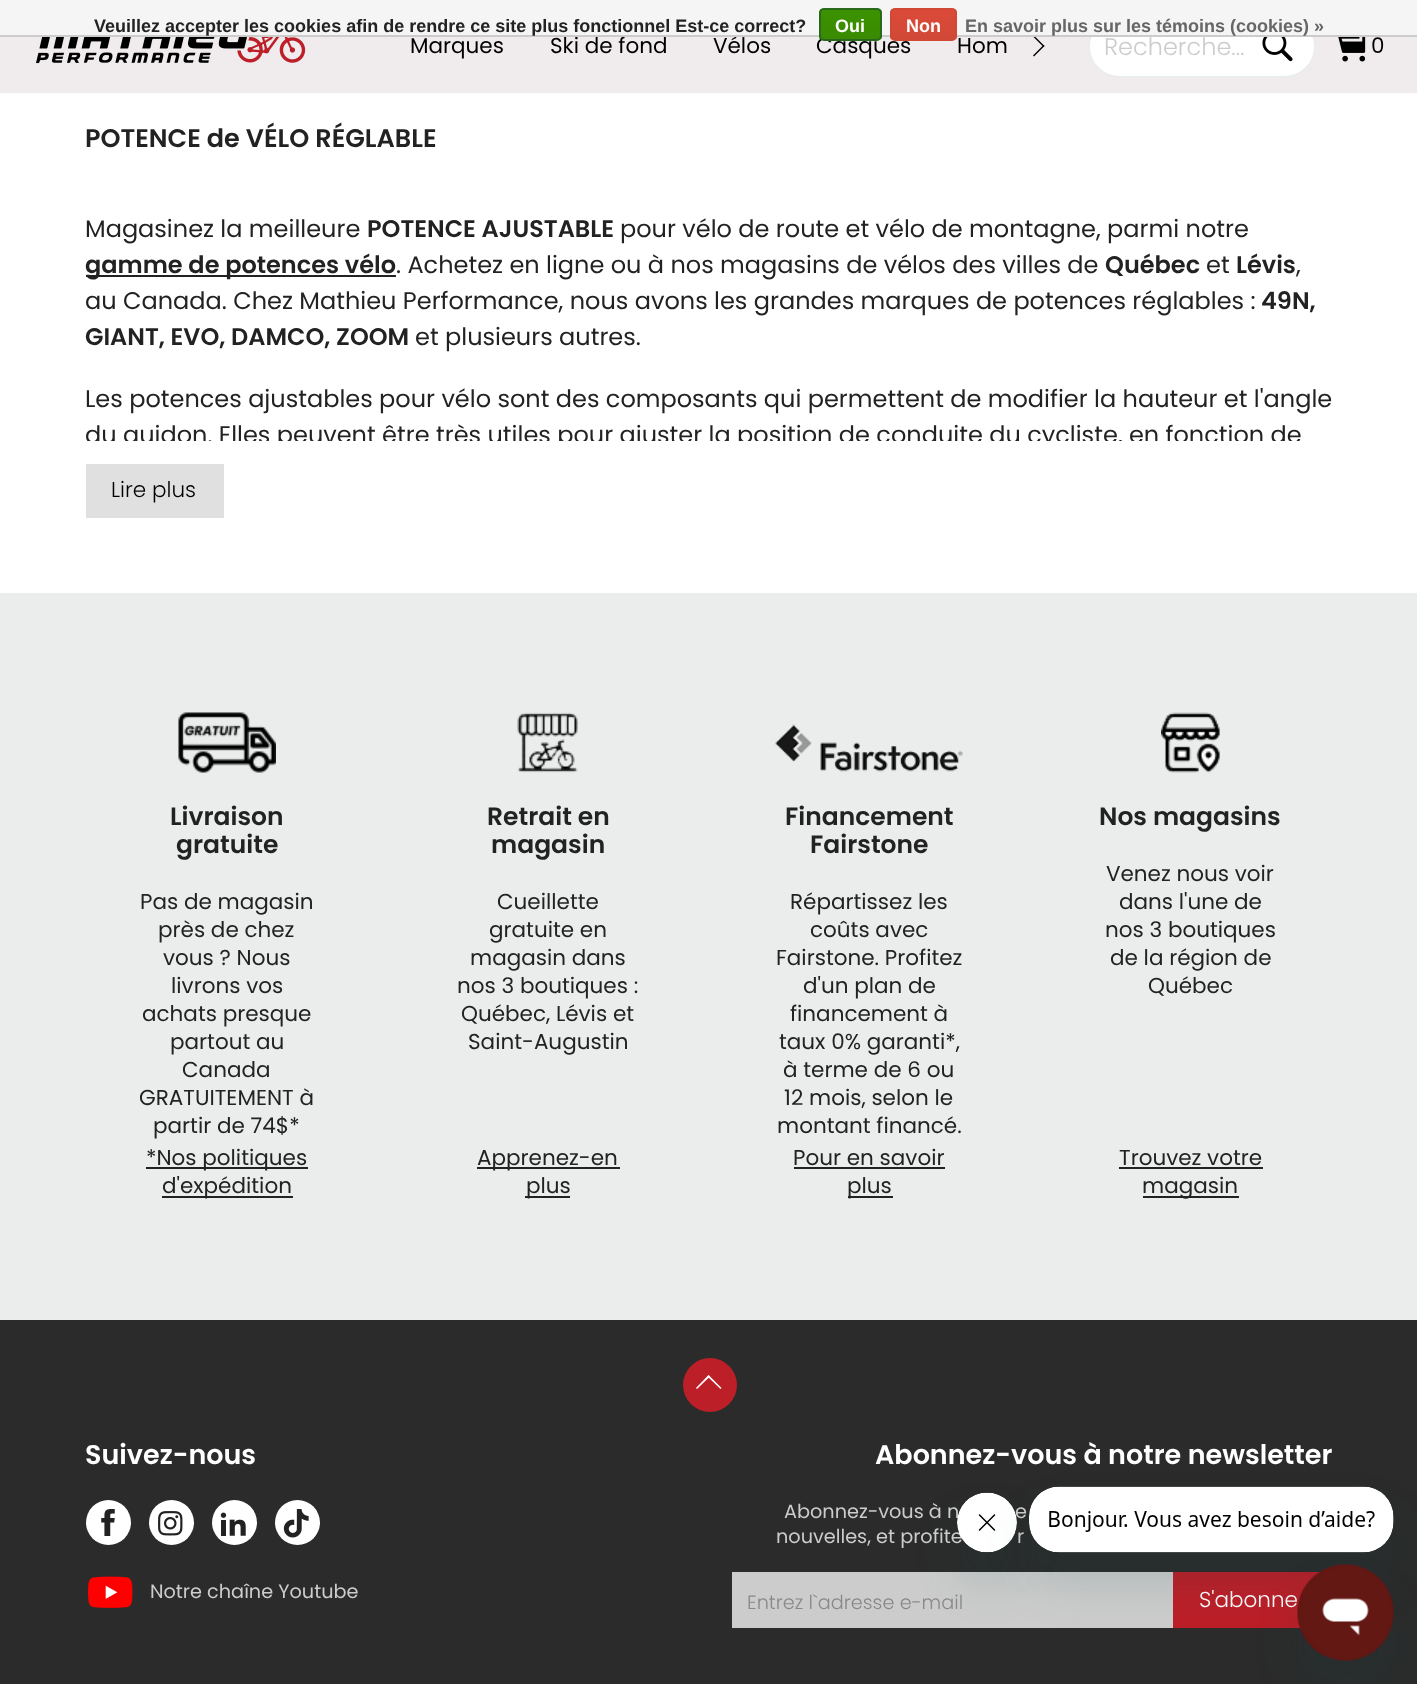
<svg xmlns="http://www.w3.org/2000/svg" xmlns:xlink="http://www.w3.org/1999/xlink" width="1417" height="1684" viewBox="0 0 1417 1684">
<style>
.cls-1{font:21.5px Poppins;fill:#000000}
.cls-2{font:bold 18px Liberation Sans;fill:#666666}
.cls-3{font:bold 18px Liberation Sans;fill:#222222}
.cls-4{font:bold 18px Liberation Sans;fill:#ffffff}
.cls-5{font:300 24px Poppins;fill:#cccccc}
.cls-6{font:600 25.5px Poppins;fill:#222222}
.cls-7{font:24px Poppins;fill:#222222}
.cls-8{font:600 24px Poppins;fill:#222222}
.cls-9{font:300 21.5px Poppins;fill:#000000}
.cls-10{font:600 25px Poppins;fill:#222222}
.cls-11{font:21.5px Poppins;fill:#222222}
.cls-12{font:600 27px Poppins;fill:#ffffff}
.cls-13{font:19.25px Poppins;fill:#cccccc}
.cls-14{font:300 19.25px Poppins;fill:#888888}
.cls-15{font:300 21.5px Poppins;fill:#ffffff}
</style>
<defs>
<clipPath id="clip1"><rect x="890" y="8" width="67" height="33" rx="5"/></clipPath>
<linearGradient id="g1" gradientUnits="userSpaceOnUse" x1="923" y1="9" x2="923" y2="39"><stop offset="0" stop-color="#dc4a38"/><stop offset="1" stop-color="#d14836"/></linearGradient>
<clipPath id="clip2"><rect x="819" y="8" width="63" height="33" rx="5"/></clipPath>
<linearGradient id="g2" gradientUnits="userSpaceOnUse" x1="851" y1="9" x2="851" y2="39"><stop offset="0" stop-color="#3c9300"/><stop offset="1" stop-color="#398a00"/></linearGradient>
<clipPath id="clip3"><rect x="86" y="66" width="1246" height="375"/></clipPath>
</defs>
<rect width="100%" height="100%" fill="#ffffff"/>
<rect fill="#f0eced" x="0" y="37" width="1417" height="56"/>
<rect fill="#ffffff" stroke="#eaedec" stroke-width="2" x="1089" y="16" width="226" height="61" rx="30.5"/>
<rect fill="#f5f5f5" x="0" y="0" width="1417" height="35"/>
<image xlink:href="image0.png" x="36" y="37" width="270" height="27"/>
<path fill="#000000" d="M1033 36.5L1034 35.5L1044.5 46L1043.5 47Z"/>
<path fill="#000000" d="M1033 55.5L1043.5 45L1044.5 46L1034 56.5Z"/>
<image xlink:href="image1.png" x="1262" y="37" width="31" height="25"/>
<image xlink:href="image2.png" x="1338" y="37" width="28" height="25"/>
<rect fill="#222222" x="86" y="275" width="310" height="2"/>
<rect fill="#e0e0e0" x="86" y="464" width="138" height="54"/>
<rect fill="#eaedec" x="0" y="593" width="1417" height="727"/>
<image xlink:href="image3.png" x="178" y="712" width="98" height="61"/>
<rect fill="#222222" x="146" y="1167" width="162" height="2"/>
<rect fill="#222222" x="162" y="1196" width="131" height="2"/>
<image xlink:href="image4.png" x="517" y="712" width="61" height="61"/>
<rect fill="#222222" x="477" y="1167" width="143" height="2"/>
<rect fill="#222222" x="525" y="1196" width="45" height="2"/>
<image xlink:href="image5.png" x="775" y="724" width="188" height="48"/>
<rect fill="#222222" x="794" y="1167" width="151" height="2"/>
<rect fill="#222222" x="848" y="1196" width="45" height="2"/>
<image xlink:href="image6.png" x="1161" y="712" width="59" height="61"/>
<rect fill="#222222" x="1119" y="1167" width="144" height="2"/>
<rect fill="#222222" x="1143" y="1196" width="96" height="2"/>
<rect fill="#2b2b2b" x="0" y="1320" width="1417" height="364"/>
<circle fill="#bc1f28" cx="710" cy="1385" r="27"/>
<path fill="#ffffff" d="M697 1389L696 1388L708.5 1375L710 1376.5Z"/>
<path fill="#ffffff" d="M720.5 1389L707.5 1376.5L708.5 1375L721.5 1388Z"/>
<circle fill="#ffffff" cx="108.5" cy="1522.5" r="22.5"/>
<image xlink:href="image7.png" x="101" y="1509" width="14" height="27"/>
<circle fill="#ffffff" cx="171.5" cy="1522.5" r="22.5"/>
<image xlink:href="image8.png" x="158" y="1511" width="25" height="25"/>
<circle fill="#ffffff" cx="234.5" cy="1522.5" r="22.5"/>
<image xlink:href="image9.png" x="220" y="1512" width="26" height="24"/>
<circle fill="#ffffff" cx="297.5" cy="1522.5" r="22.5"/>
<image xlink:href="image10.png" x="283" y="1509" width="26" height="29"/>
<image xlink:href="image11.png" x="88" y="1576" width="45" height="32"/>
<rect fill="#cccccc" x="732" y="1572" width="441" height="56"/>
<rect fill="#bc1f28" x="1173" y="1572" width="148" height="56"/>
<rect fill="#17494d" fill-opacity="0.15" filter="blur(22.5px)" x="957" y="1523" width="60" height="60" rx="30"/>
<text class="cls-1" x="410" y="53">Marques</text>
<text class="cls-1" x="550" y="53">Ski de fond</text>
<text class="cls-1" x="713" y="53">Vélos</text>
<rect fill="#cccccc" x="0" y="35" width="1417" height="2"/>
<text class="cls-2" x="965" y="32">En savoir plus sur les témoins (cookies) »</text>
<text class="cls-3" x="94" y="32">Veuillez accepter les cookies afin de rendre ce site plus fonctionnel Est-ce correct?</text>
<text class="cls-1" x="816" y="53">Casques</text>
<g clip-path="url(#clip1)">
<rect fill="url(#g1)" x="890" y="9" width="67" height="30"/>
</g>
<rect fill="none" stroke="#d14836" stroke-width="2" x="891" y="9" width="65" height="31" rx="4"/>
<text class="cls-4" x="906" y="32">Non</text>
<g clip-path="url(#clip2)">
<rect fill="url(#g2)" x="819" y="9" width="63" height="30"/>
</g>
<rect fill="none" stroke="#29691d" stroke-width="2" x="820" y="9" width="61" height="31" rx="4"/>
<text class="cls-4" x="835" y="32">Oui</text>
<text class="cls-1" x="957" y="53">Hom</text>
<text class="cls-5" x="1104" y="55">Recherche...</text>
<text class="cls-1" x="1371" y="53">0</text>
<text class="cls-6" x="85" y="147">POTENCE de VÉLO RÉGLABLE</text>
<text class="cls-7" x="85" y="237">Magasinez la meilleure</text>
<text class="cls-8" x="367" y="237">POTENCE AJUSTABLE</text>
<text class="cls-7" x="620" y="237">pour vélo de route et vélo de montagne, parmi notre</text>
<text class="cls-8" x="85" y="273">gamme de potences vélo</text>
<text class="cls-7" x="396" y="273">. Achetez en ligne ou à nos magasins de vélos des villes de</text>
<text class="cls-8" x="1105" y="273">Québec</text>
<text class="cls-7" x="1206" y="273">et</text>
<text class="cls-8" x="1236" y="273">Lévis</text>
<text class="cls-7" x="1296" y="273">,</text>
<text class="cls-7" x="85" y="309">au Canada. Chez Mathieu Performance, nous avons les grandes marques de potences réglables :</text>
<text class="cls-8" x="1261" y="309">49N,</text>
<text class="cls-8" x="85" y="345">GIANT, EVO, DAMCO, ZOOM</text>
<text class="cls-7" x="415" y="345">et plusieurs autres.</text>
<text class="cls-7" x="85" y="407">Les potences ajustables pour vélo sont des composants qui permettent de modifier la hauteur et l'angle</text>
<g clip-path="url(#clip3)">
<text class="cls-7" x="85" y="443">du guidon. Elles peuvent être très utiles pour ajuster la position de conduite du cycliste, en fonction de</text>
</g>
<text class="cls-9" x="111" y="497">Lire plus</text>
<text class="cls-10" x="170" y="825">Livraison</text>
<text class="cls-10" x="176" y="853">gratuite</text>
<text class="cls-11" x="140" y="909">Pas de magasin</text>
<text class="cls-11" x="158" y="937">près de chez</text>
<text class="cls-11" x="163" y="965">vous ? Nous</text>
<text class="cls-11" x="171" y="993">livrons vos</text>
<text class="cls-11" x="142" y="1021">achats presque</text>
<text class="cls-11" x="170" y="1049">partout au</text>
<text class="cls-11" x="182" y="1077">Canada</text>
<text class="cls-11" x="139" y="1105">GRATUITEMENT à</text>
<text class="cls-11" x="153" y="1133">partir de 74$*</text>
<text class="cls-11" x="146" y="1165">*Nos politiques</text>
<text class="cls-11" x="162" y="1193">d'expédition</text>
<text class="cls-10" x="487" y="825">Retrait en</text>
<text class="cls-10" x="491" y="853">magasin</text>
<text class="cls-11" x="497" y="909">Cueillette</text>
<text class="cls-11" x="489" y="937">gratuite en</text>
<text class="cls-11" x="470" y="965">magasin dans</text>
<text class="cls-11" x="457" y="993">nos 3 boutiques :</text>
<text class="cls-11" x="461" y="1021">Québec, Lévis et</text>
<text class="cls-11" x="468" y="1049">Saint-Augustin</text>
<text class="cls-11" x="477" y="1165">Apprenez-en</text>
<text class="cls-11" x="526" y="1193">plus</text>
<text class="cls-10" x="785" y="825">Financement</text>
<text class="cls-10" x="810" y="853">Fairstone</text>
<text class="cls-11" x="790" y="909">Répartissez les</text>
<text class="cls-11" x="810" y="937">coûts avec</text>
<text class="cls-11" x="776" y="965">Fairstone. Profitez</text>
<text class="cls-11" x="803" y="993">d'un plan de</text>
<text class="cls-11" x="790" y="1021">financement à</text>
<text class="cls-11" x="779" y="1049">taux 0% garanti*,</text>
<text class="cls-11" x="783" y="1077">à terme de 6 ou</text>
<text class="cls-11" x="784" y="1105">12 mois, selon le</text>
<text class="cls-11" x="777" y="1133">montant financé.</text>
<text class="cls-11" x="793" y="1165">Pour en savoir</text>
<text class="cls-11" x="847" y="1193">plus</text>
<text class="cls-10" x="1099" y="825">Nos magasins</text>
<text class="cls-11" x="1106" y="881">Venez nous voir</text>
<text class="cls-11" x="1119" y="909">dans l'une de</text>
<text class="cls-11" x="1105" y="937">nos 3 boutiques</text>
<text class="cls-11" x="1110" y="965">de la région de</text>
<text class="cls-11" x="1148" y="993">Québec</text>
<text class="cls-11" x="1119" y="1165">Trouvez votre</text>
<text class="cls-11" x="1142" y="1193">magasin</text>
<text class="cls-12" x="85" y="1464">Suivez-nous</text>
<text class="cls-13" x="150" y="1598">Notre chaîne Youtube</text>
<text class="cls-12" x="875" y="1464">Abonnez-vous à notre newsletter</text>
<text class="cls-13" x="784" y="1518">Abonnez-vous à n</text>
<text class="cls-13" x="1015" y="1518">e</text>
<text class="cls-13" x="776" y="1543">nouvelles, et profite</text>
<text class="cls-13" x="1017" y="1543">r</text>
<text class="cls-14" x="747" y="1609">Entrez l`adresse e-mail</text>
<text class="cls-15" x="1199" y="1607">S'abonne</text>
<image xlink:href="image13.png" x="957" y="1492" width="60" height="61"/>
<rect fill="#17494d" fill-opacity="0.15" filter="blur(22.5px)" x="1029" y="1517" width="365" height="66" rx="30"/>
<image xlink:href="image12.png" x="1029" y="1486" width="365" height="67"/>
<rect fill="#17494d" fill-opacity="0.15" filter="blur(22.5px)" x="1298" y="1595" width="96" height="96" rx="48"/>
<image xlink:href="image14.png" x="1297" y="1564" width="97" height="97"/>
</svg>
